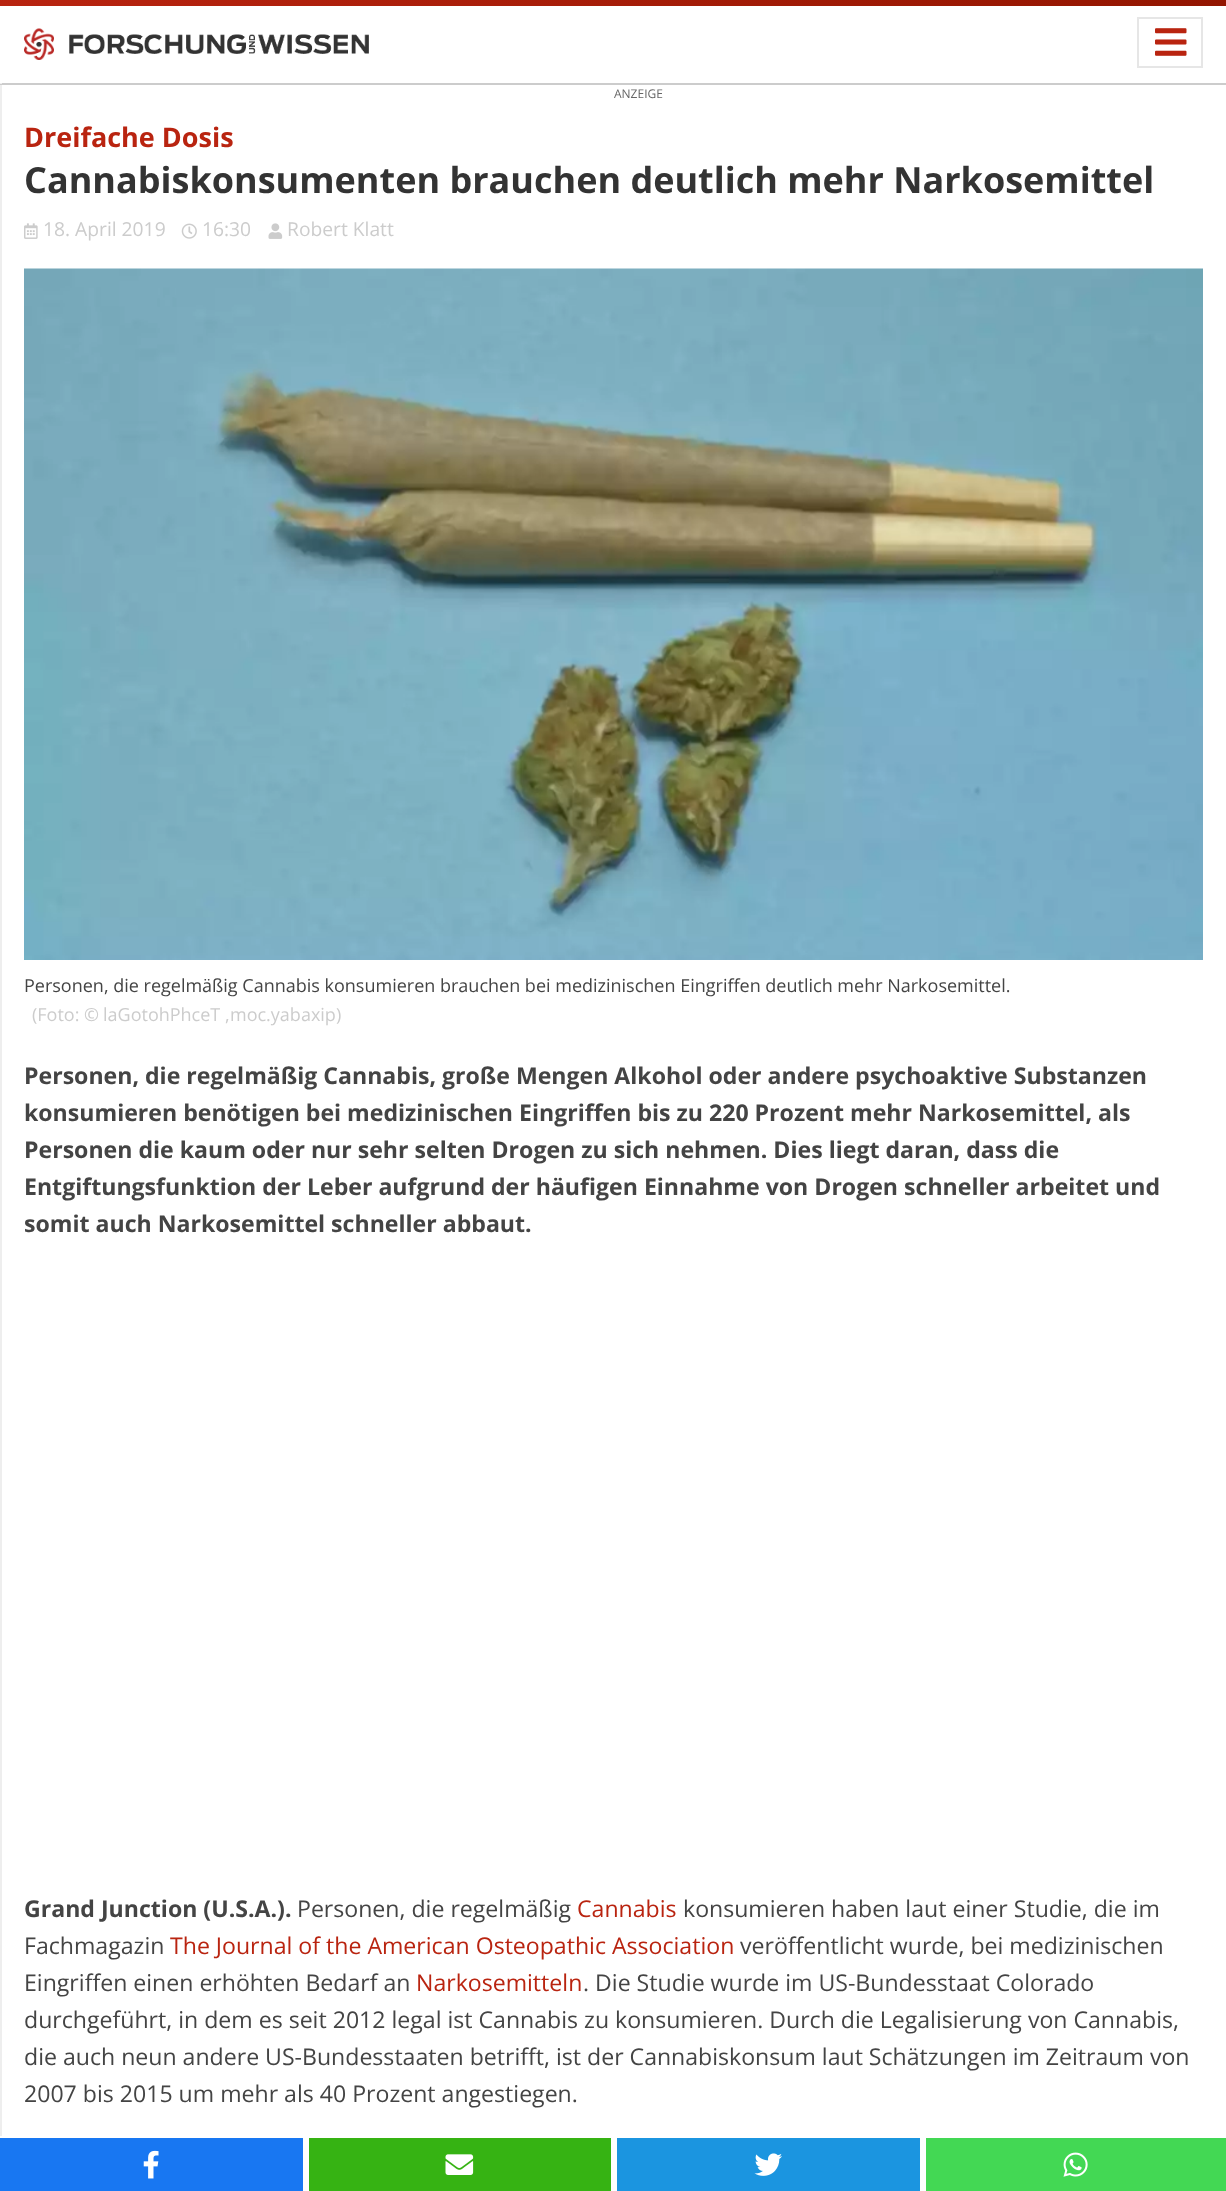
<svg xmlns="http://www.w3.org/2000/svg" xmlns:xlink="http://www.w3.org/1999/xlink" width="1226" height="2191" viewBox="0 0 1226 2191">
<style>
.cls-1{font:12px Open Sans;fill:#666666}
.cls-2{font:bold 27px Open Sans;fill:#b92410}
.cls-3{font:bold 36px Open Sans;fill:#333333}
.cls-4{font:19.25px Open Sans;fill:#cccccc}
.cls-5{font:18px Open Sans;fill:#444444}
.cls-6{font:18px Open Sans;fill:#cccccc}
.cls-7{font:bold 23.1px Open Sans;fill:#444444}
.cls-8{font:23.1px Open Sans;fill:#444444}
.cls-9{font:23.1px Open Sans;fill:#b92410}
</style>
<defs>
<linearGradient id="g1" gradientUnits="userSpaceOnUse" x1="-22" y1="3" x2="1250" y2="3"><stop offset="0" stop-color="#b92410"/><stop offset="1" stop-color="#921500"/></linearGradient>
</defs>
<rect width="100%" height="100%" fill="#ffffff"/>
<rect fill="#eeeeee" x="0" y="84" width="2" height="2052"/>
<rect fill="#cccccc" x="0" y="83" width="1226" height="2"/>
<rect fill="#eeeeee" x="0" y="83" width="2" height="1"/>
<rect fill="url(#g1)" x="0" y="0" width="1226" height="6"/>
<image xlink:href="image0.png" x="24" y="28" width="30" height="32"/>
<image xlink:href="image1.png" x="69" y="34" width="300" height="20"/>
<rect fill="none" stroke="#e6e6e6" stroke-width="2" x="1138" y="18" width="64" height="49"/>
<image xlink:href="image2.png" x="1155" y="28" width="32" height="28"/>
<image xlink:href="image3.png" x="24" y="223" width="14" height="16"/>
<image xlink:href="image4.png" x="181" y="223" width="16" height="16"/>
<image xlink:href="image5.png" x="268" y="223" width="15" height="16"/>
<image xlink:href="image6.png" x="24" y="268" width="1179" height="692"/>
<rect fill="#1877f2" x="0" y="2138" width="303" height="53"/>
<image xlink:href="image7.png" x="143" y="2150" width="16" height="29"/>
<rect fill="#36b313" x="309" y="2138" width="302" height="53"/>
<image xlink:href="image8.png" x="445" y="2154" width="29" height="21"/>
<rect fill="#1b95e0" x="617" y="2138" width="303" height="53"/>
<image xlink:href="image9.png" x="754" y="2153" width="28" height="23"/>
<rect fill="#43d854" x="926" y="2138" width="300" height="53"/>
<image xlink:href="image10.png" x="1063" y="2152" width="25" height="25"/>
<text class="cls-1" x="614" y="98">ANZEIGE</text>
<text class="cls-2" x="24" y="147">Dreifache Dosis</text>
<text class="cls-3" x="24" y="193">Cannabiskonsumenten brauchen deutlich mehr Narkosemittel</text>
<text class="cls-4" x="43" y="236">18. April 2019</text>
<text class="cls-4" x="202" y="236">16:30</text>
<text class="cls-4" x="287" y="236">Robert Klatt</text>
<text class="cls-5" x="24" y="992">Personen, die regelmäßig Cannabis konsumieren brauchen bei medizinischen Eingriffen deutlich mehr Narkosemittel.</text>
<text class="cls-6" x="32" y="1021">(Foto: ©</text>
<text class="cls-6" x="103" y="1021">laGotohPhceT</text>
<text class="cls-6" x="225" y="1021">,</text>
<text class="cls-6" x="230" y="1021">moc.yabaxip</text>
<text class="cls-6" x="336" y="1021">)</text>
<text class="cls-7"><tspan x="24" y="1084">Personen, die regelmäßig Cannabis, große Mengen Alkohol oder andere psychoaktive Substanzen</tspan><tspan x="24" y="1121">konsumieren benötigen bei medizinischen Eingriffen bis zu 220 Prozent mehr Narkosemittel, als</tspan><tspan x="24" y="1158">Personen die kaum oder nur sehr selten Drogen zu sich nehmen. Dies liegt daran, dass die</tspan><tspan x="24" y="1195">Entgiftungsfunktion der Leber aufgrund der häufigen Einnahme von Drogen schneller arbeitet und</tspan><tspan x="24" y="1232">somit auch Narkosemittel schneller abbaut.</tspan></text>
<text class="cls-7" x="24" y="1917">Grand Junction (U.S.A.).</text>
<text class="cls-8" x="297" y="1917">Personen, die regelmäßig</text>
<text class="cls-9" x="577" y="1917">Cannabis</text>
<text class="cls-8" x="683" y="1917">konsumieren haben laut einer Studie, die im</text>
<text class="cls-8" x="24" y="1954">Fachmagazin</text>
<text class="cls-9" x="170" y="1954">The Journal of the American Osteopathic Association</text>
<text class="cls-8" x="740" y="1954">veröffentlicht wurde, bei medizinischen</text>
<text class="cls-8" x="24" y="1991">Eingriffen einen erhöhten Bedarf an</text>
<text class="cls-9" x="416" y="1991">Narkosemitteln</text>
<text class="cls-8" x="583" y="1991">. Die Studie wurde im US-Bundesstaat Colorado</text>
<text class="cls-8"><tspan x="24" y="2028">durchgeführt, in dem es seit 2012 legal ist Cannabis zu konsumieren. Durch die Legalisierung von Cannabis,</tspan><tspan x="24" y="2065">die auch neun andere US-Bundesstaaten betrifft, ist der Cannabiskonsum laut Schätzungen im Zeitraum von</tspan><tspan x="24" y="2102">2007 bis 2015 um mehr als 40 Prozent angestiegen.</tspan></text>
</svg>
